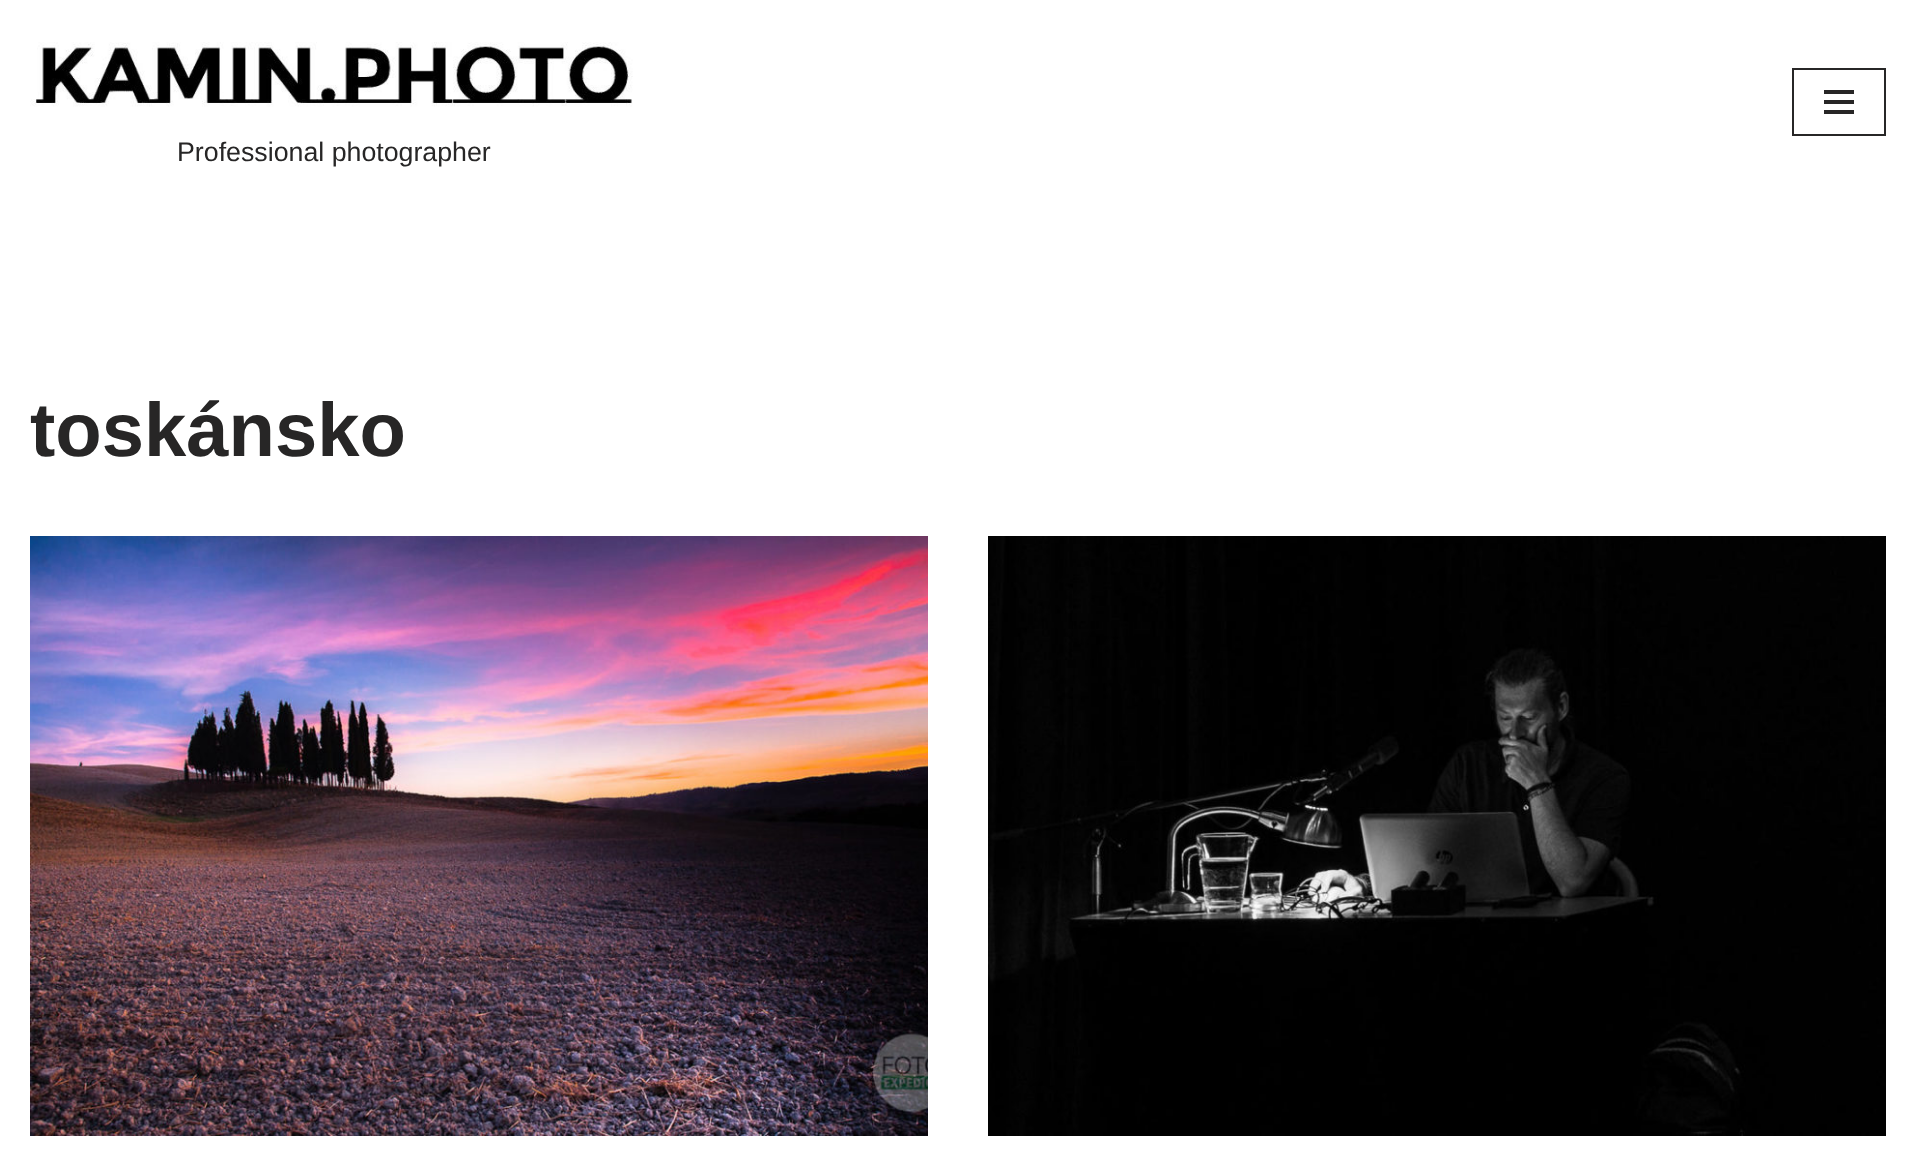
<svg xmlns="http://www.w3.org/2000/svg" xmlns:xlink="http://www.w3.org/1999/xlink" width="1916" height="1176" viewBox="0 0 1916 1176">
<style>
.cls-1{font:26.75px Liberation Sans;fill:#272626}
.cls-2{font:bold 76px Liberation Sans;fill:#272626}
</style>
<rect width="100%" height="100%" fill="#ffffff"/>
<rect fill="none" stroke="#272626" stroke-width="2" x="1793" y="69" width="92" height="66"/>
<rect fill="#272626" x="1824" y="90" width="30" height="4"/>
<rect fill="#272626" x="1824" y="100" width="30" height="4"/>
<rect fill="#272626" x="1824" y="110" width="30" height="4"/>
<image xlink:href="image0.png" x="30" y="42" width="603" height="65"/>
<image xlink:href="image1.png" x="30" y="536" width="898" height="600"/>
<image xlink:href="image2.png" x="988" y="536" width="898" height="600"/>
<text class="cls-1" x="177" y="161">Professional photographer</text>
<text class="cls-2" x="30" y="456">toskánsko</text>
</svg>
